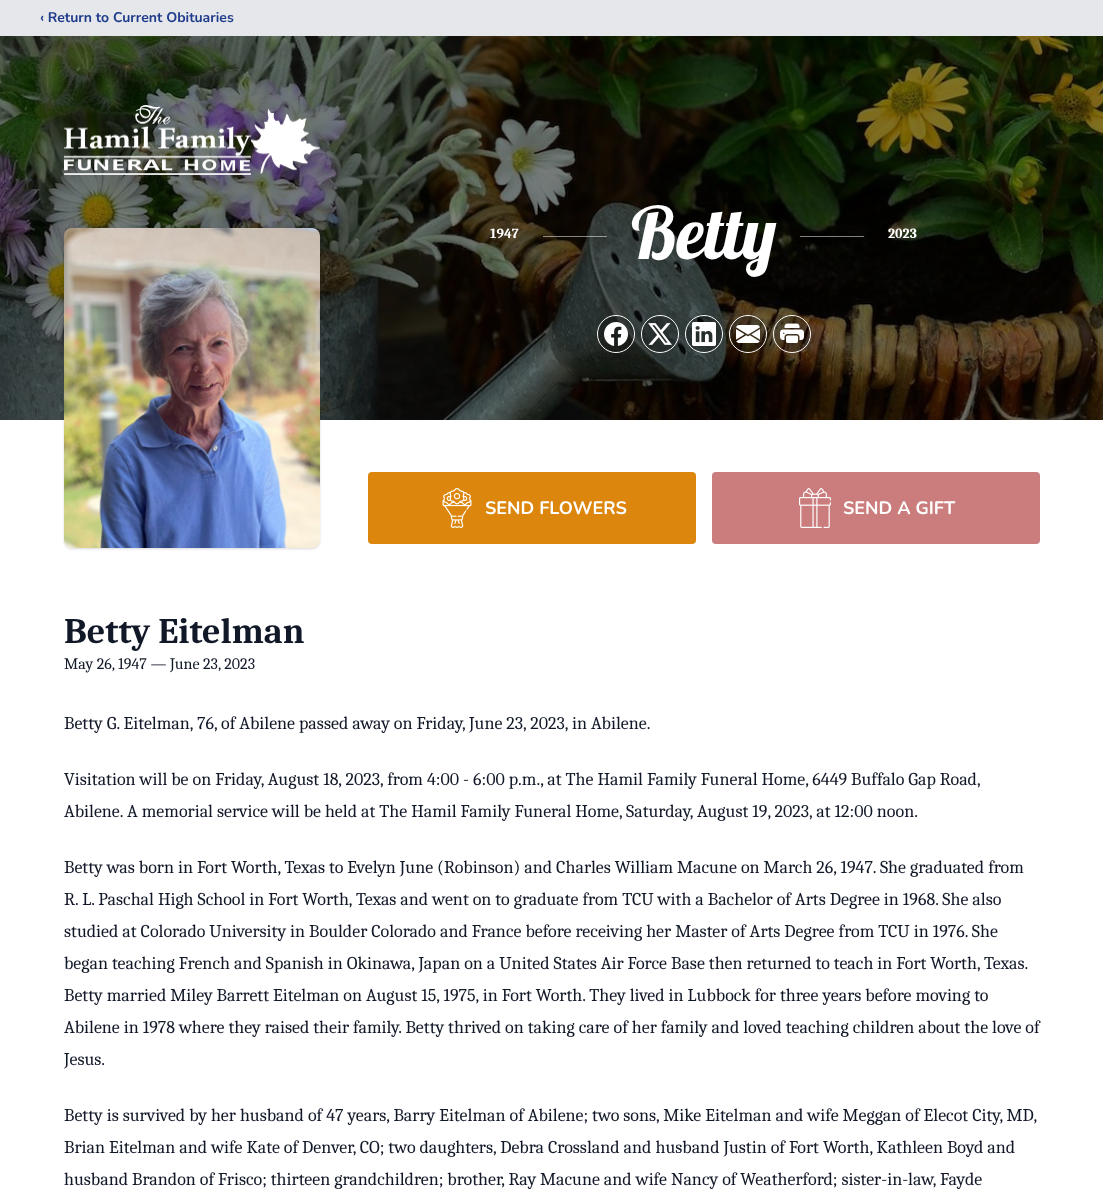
<svg xmlns="http://www.w3.org/2000/svg" xmlns:xlink="http://www.w3.org/1999/xlink" width="1103" height="1192" viewBox="0 0 1103 1192">
<style>
.cls-1{font:bold 14px Nunito;fill:#1e3a8a}
.cls-2{font:bold 14px Caladea;fill:#ffffff}
.cls-3{font:72px Lobster;fill:#ffffff}
.cls-4{font:bold 18px Nunito;fill:#ffffff}
.cls-5{font:bold 36px Caladea;fill:#111827}
.cls-6{font:16px Caladea;fill:#111827}
.cls-7{font:18px Caladea;fill:#111827}
</style>
<rect width="100%" height="100%" fill="#ffffff"/>
<rect fill="#e5e7eb" x="0" y="0" width="1103" height="36"/>
<image xlink:href="image0.png" x="0" y="36" width="1103" height="384"/>
<image xlink:href="image1.png" x="64" y="105" width="256" height="70"/>
<rect fill="#000000" fill-opacity="0.1" filter="blur(1px)" x="65" y="230" width="254" height="318" rx="7"/>
<rect fill="#000000" fill-opacity="0.1" filter="blur(1.5px)" x="64" y="229" width="256" height="320" rx="8"/>
<image xlink:href="image2.png" x="64" y="228" width="256" height="320"/>
<rect fill="#ffffff" fill-opacity="0.5" x="543" y="236" width="64" height="1"/>
<rect fill="#ffffff" fill-opacity="0.5" x="800" y="236" width="64" height="1"/>
<circle fill="none" stroke="#ffffff" cx="616" cy="334" r="18.5"/>
<circle fill="#000000" fill-opacity="0.2" cx="616" cy="334" r="18"/>
<image xlink:href="image3.png" x="604" y="322" width="24" height="24"/>
<circle fill="none" stroke="#ffffff" cx="660" cy="334" r="18.5"/>
<circle fill="#000000" fill-opacity="0.2" cx="660" cy="334" r="18"/>
<image xlink:href="image4.png" x="648" y="323" width="24" height="22"/>
<circle fill="none" stroke="#ffffff" cx="704" cy="334" r="18.5"/>
<circle fill="#000000" fill-opacity="0.2" cx="704" cy="334" r="18"/>
<image xlink:href="image5.png" x="692" y="322" width="24" height="24"/>
<circle fill="none" stroke="#ffffff" cx="748" cy="334" r="18.5"/>
<circle fill="#000000" fill-opacity="0.2" cx="748" cy="334" r="18"/>
<image xlink:href="image6.png" x="736" y="325" width="24" height="18"/>
<circle fill="none" stroke="#ffffff" cx="792" cy="334" r="18.5"/>
<circle fill="#000000" fill-opacity="0.2" cx="792" cy="334" r="18"/>
<image xlink:href="image7.png" x="780" y="323" width="24" height="20"/>
<rect fill="#dc860d" x="368" y="472" width="328" height="72" rx="4"/>
<image xlink:href="image8.png" x="442" y="488" width="30" height="40"/>
<rect fill="#cb7c7c" x="712" y="472" width="328" height="72" rx="4"/>
<image xlink:href="image9.png" x="799" y="488" width="32" height="40"/>
<text class="cls-1" x="40" y="22">‹ Return to Current Obituaries</text>
<text class="cls-2" x="490" y="238">1947</text>
<text class="cls-3" x="631" y="259">Betty</text>
<text class="cls-2" x="888" y="238">2023</text>
<text class="cls-4" x="485" y="514">SEND FLOWERS</text>
<text class="cls-4" x="843" y="514">SEND A GIFT</text>
<text class="cls-5" x="64" y="643">Betty Eitelman</text>
<text class="cls-6" x="64" y="669">May 26, 1947 — June 23, 2023</text>
<text class="cls-7" x="64" y="729">Betty G. Eitelman, 76, of Abilene passed away on Friday, June 23, 2023, in Abilene.</text>
<text class="cls-7"><tspan x="64" y="785">Visitation will be on Friday, August 18, 2023, from 4:00 - 6:00 p.m., at The Hamil Family Funeral Home, 6449 Buffalo Gap Road,</tspan><tspan x="64" y="817">Abilene. A memorial service will be held at The Hamil Family Funeral Home, Saturday, August 19, 2023, at 12:00 noon.</tspan></text>
<text class="cls-7"><tspan x="64" y="873">Betty was born in Fort Worth, Texas to Evelyn June (Robinson) and Charles William Macune on March 26, 1947. She graduated from</tspan><tspan x="64" y="905">R. L. Paschal High School in Fort Worth, Texas and went on to graduate from TCU with a Bachelor of Arts Degree in 1968. She also</tspan><tspan x="64" y="937">studied at Colorado University in Boulder Colorado and France before receiving her Master of Arts Degree from TCU in 1976. She</tspan><tspan x="64" y="969">began teaching French and Spanish in Okinawa, Japan on a United States Air Force Base then returned to teach in Fort Worth, Texas.</tspan><tspan x="64" y="1001">Betty married Miley Barrett Eitelman on August 15, 1975, in Fort Worth. They lived in Lubbock for three years before moving to</tspan><tspan x="64" y="1033">Abilene in 1978 where they raised their family. Betty thrived on taking care of her family and loved teaching children about the love of</tspan><tspan x="64" y="1065">Jesus.</tspan></text>
<text class="cls-7"><tspan x="64" y="1121">Betty is survived by her husband of 47 years, Barry Eitelman of Abilene; two sons, Mike Eitelman and wife Meggan of Elecot City, MD,</tspan><tspan x="64" y="1153">Brian Eitelman and wife Kate of Denver, CO; two daughters, Debra Crossland and husband Justin of Fort Worth, Kathleen Boyd and</tspan><tspan x="64" y="1185">husband Brandon of Frisco; thirteen grandchildren; brother, Ray Macune and wife Nancy of Weatherford; sister-in-law, Fayde</tspan></text>
</svg>
